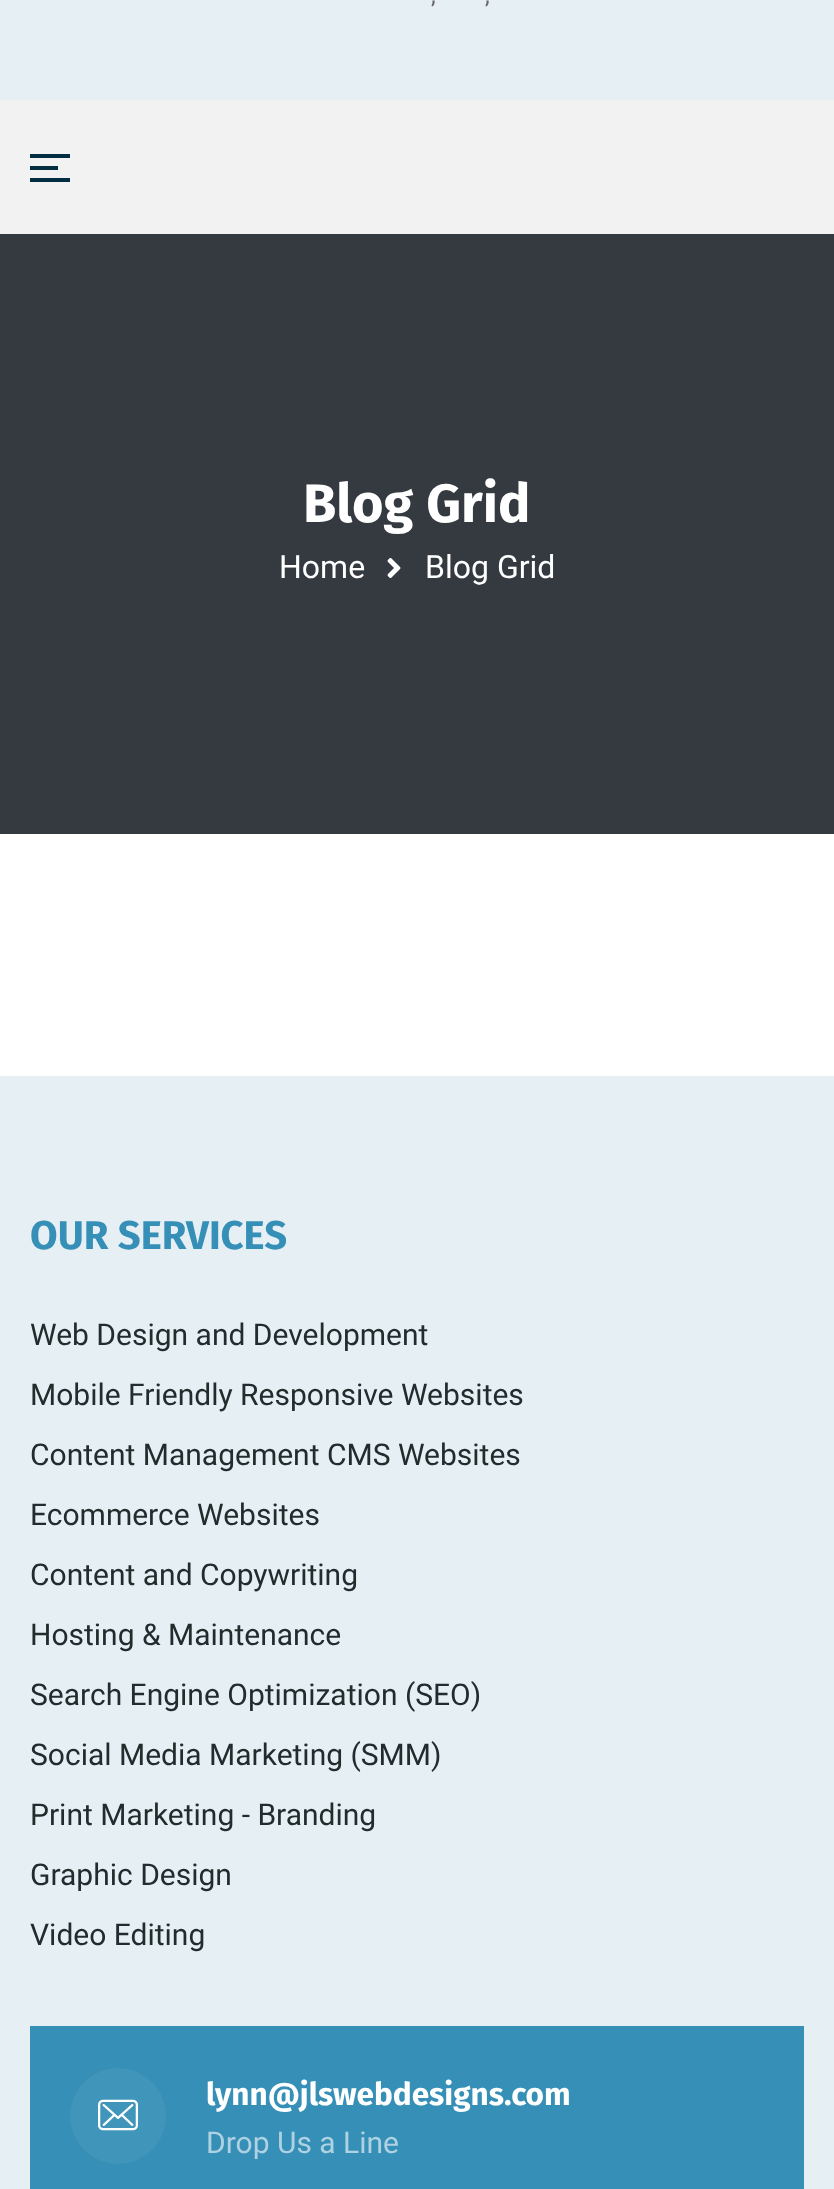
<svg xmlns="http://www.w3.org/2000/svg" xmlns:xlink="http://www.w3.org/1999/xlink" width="834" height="2189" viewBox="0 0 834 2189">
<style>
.cls-1{font:24px Roboto;fill:#676767}
.cls-2{font:bold 54px Fira Sans;fill:#ffffff}
.cls-3{font:32px Roboto;fill:#ffffff}
.cls-4{font:bold 40px Fira Sans;fill:#368fb6}
.cls-5{font:30px Roboto;fill:#212d2c}
.cls-6{font:bold 31.5px Fira Sans;fill:#ffffff}
.cls-7{font:30px Roboto;fill:#afd2e2}
</style>
<rect width="100%" height="100%" fill="#ffffff"/>
<rect fill="#e6f0f4" x="0" y="0" width="834" height="100"/>
<rect fill="#f2f2f2" x="0" y="100" width="834" height="134"/>
<rect fill="#032e42" x="30" y="154" width="40" height="4"/>
<rect fill="#032e42" x="30" y="166" width="28" height="4"/>
<rect fill="#032e42" x="30" y="178" width="40" height="4"/>
<rect fill="#343a40" x="0" y="234" width="834" height="600"/>
<image xlink:href="image0.png" x="387" y="558" width="14" height="20"/>
<rect fill="#e6f0f4" x="0" y="1076" width="834" height="1113"/>
<rect fill="#368fb6" x="30" y="2026" width="774" height="163"/>
<circle fill="#4095ba" cx="118" cy="2116" r="48"/>
<image xlink:href="image1.png" x="98" y="2099" width="40" height="32"/>
<text class="cls-1" x="431" y="3">,</text>
<text class="cls-1" x="485" y="3">,</text>
<text class="cls-2" x="303" y="522">Blog Grid</text>
<text class="cls-3" x="279" y="578">Home</text>
<text class="cls-3" x="425" y="578">Blog Grid</text>
<text class="cls-4" x="30" y="1249">OUR SERVICES</text>
<text class="cls-5" x="30" y="1345">Web Design and Development</text>
<text class="cls-5" x="30" y="1405">Mobile Friendly Responsive Websites</text>
<text class="cls-5" x="30" y="1465">Content Management CMS Websites</text>
<text class="cls-5" x="30" y="1525">Ecommerce Websites</text>
<text class="cls-5" x="30" y="1585">Content and Copywriting</text>
<text class="cls-5" x="30" y="1645">Hosting &amp; Maintenance</text>
<text class="cls-5" x="30" y="1705">Search Engine Optimization (SEO)</text>
<text class="cls-5" x="30" y="1765">Social Media Marketing (SMM)</text>
<text class="cls-5" x="30" y="1825">Print Marketing - Branding</text>
<text class="cls-5" x="30" y="1885">Graphic Design</text>
<text class="cls-5" x="30" y="1945">Video Editing</text>
<text class="cls-6" x="206" y="2105">lynn@jlswebdesigns.com</text>
<text class="cls-7" x="206" y="2153">Drop Us a Line</text>
</svg>
